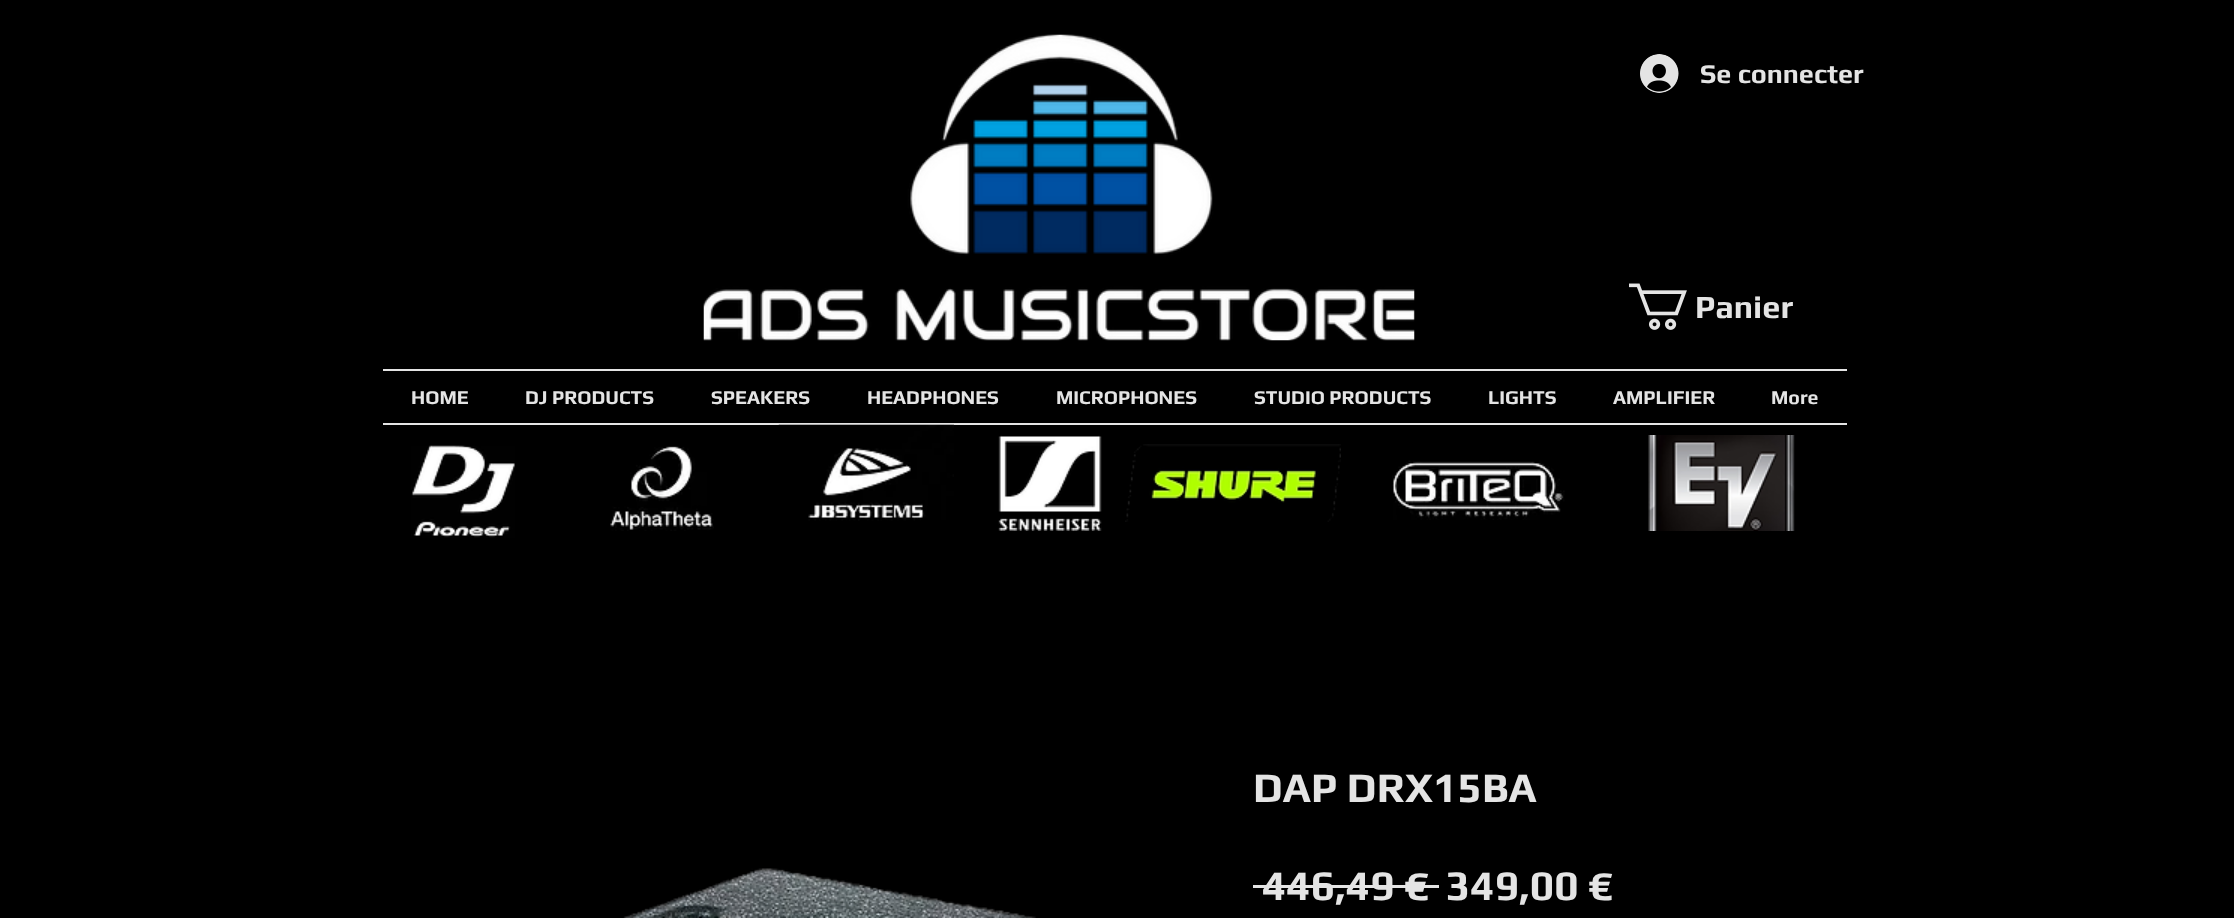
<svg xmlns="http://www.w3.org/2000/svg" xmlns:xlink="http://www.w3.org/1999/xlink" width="2234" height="918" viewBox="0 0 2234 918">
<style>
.cls-1{font:bold 27px Play;fill:#e4e4e4}
.cls-2{font:bold 32.5px Play;fill:#e4e4e4}
.cls-3{font:bold 19.5px Play;fill:#e4e4e4}
.cls-4{font:bold 42px Play;fill:#e4e4e4}
</style>
<rect width="100%" height="100%" fill="#000000"/>
<image xlink:href="image0.png" x="703" y="34" width="712" height="307"/>
<image xlink:href="image1.png" x="1640" y="54" width="39" height="39"/>
<image xlink:href="image2.png" x="1629" y="283" width="58" height="47"/>
<rect fill="#e4e4e4" x="383" y="369" width="1464" height="2"/>
<rect fill="#e4e4e4" x="383" y="423" width="1464" height="2"/>
<image xlink:href="image3.png" x="411" y="445" width="104" height="93"/>
<image xlink:href="image4.png" x="610" y="446" width="104" height="85"/>
<image xlink:href="image5.png" x="778" y="424" width="176" height="97"/>
<image xlink:href="image6.png" x="998" y="435" width="104" height="96"/>
<image xlink:href="image7.png" x="1125" y="444" width="216" height="78"/>
<image xlink:href="image8.png" x="1392" y="460" width="173" height="60"/>
<image xlink:href="image9.png" x="1648" y="435" width="147" height="96"/>
<image xlink:href="image10.png" x="623" y="868" width="413" height="50"/>
<rect fill="#e4e4e4" x="1253" y="885" width="186" height="3"/>
<text class="cls-1" x="1700" y="83">Se connecter</text>
<text class="cls-2" x="1695" y="318">Panier</text>
<text class="cls-3" x="411" y="404">HOME</text>
<text class="cls-3" x="525" y="404">DJ PRODUCTS</text>
<text class="cls-3" x="711" y="404">SPEAKERS</text>
<text class="cls-3" x="867" y="404">HEADPHONES</text>
<text class="cls-3" x="1056" y="404">MICROPHONES</text>
<text class="cls-3" x="1254" y="404">STUDIO PRODUCTS</text>
<text class="cls-3" x="1488" y="404">LIGHTS</text>
<text class="cls-3" x="1613" y="404">AMPLIFIER</text>
<text class="cls-3" x="1771" y="404">More</text>
<text class="cls-4" x="1253" y="802">DAP DRX15BA</text>
<text class="cls-4" x="1262" y="900">446,49 €</text>
<text class="cls-4" x="1446" y="900">349,00 €</text>
</svg>
